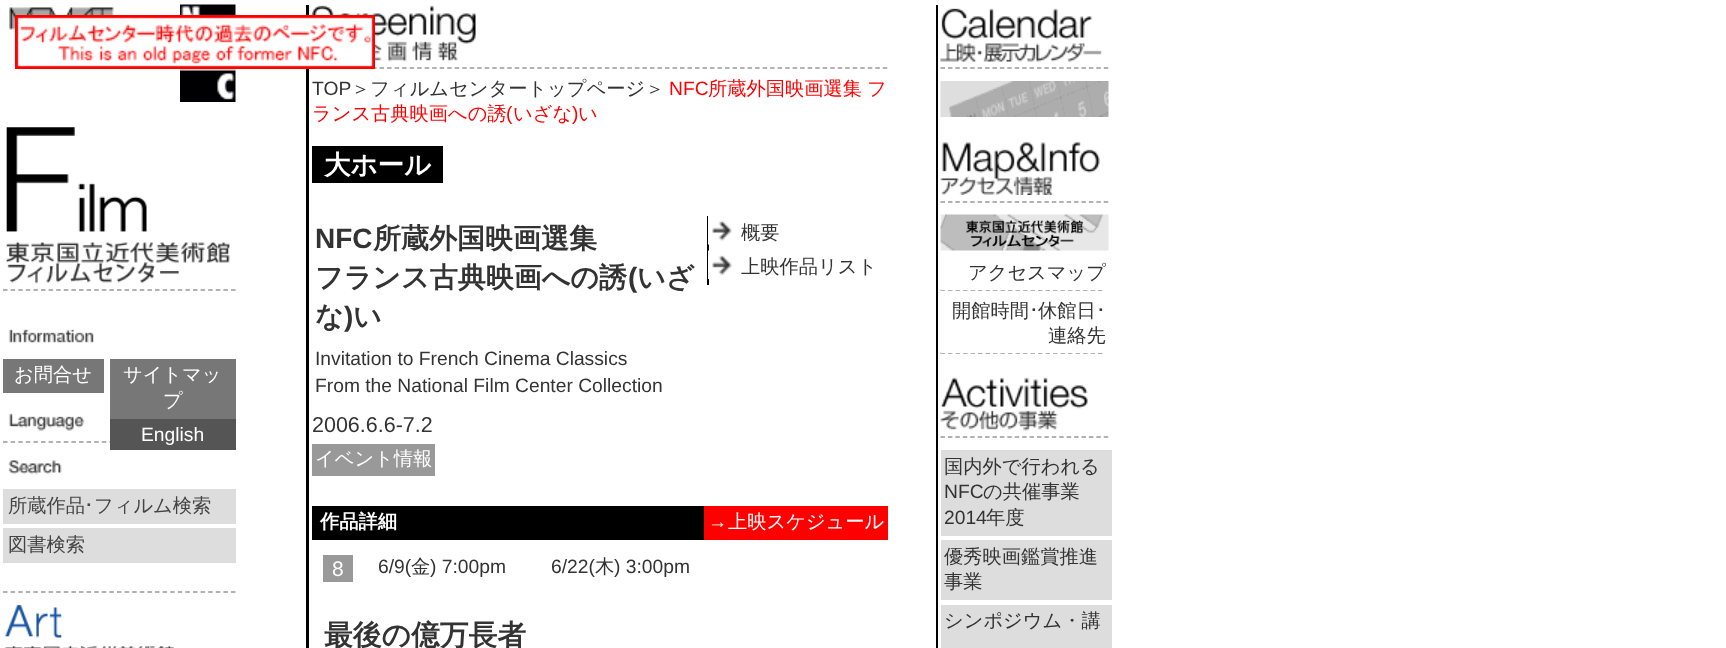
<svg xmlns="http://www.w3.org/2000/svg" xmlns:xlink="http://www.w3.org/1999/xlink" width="1726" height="648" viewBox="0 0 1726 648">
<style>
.cls-1{font:500 19.25px WenQuanYi Zen Hei;fill:#ffffff}
.cls-2{font:19.25px Liberation Sans;fill:#ffffff}
.cls-3{font:500 19.25px WenQuanYi Zen Hei;fill:#444444}
.cls-4{font:19.25px IPAGothic;fill:#444444}
.cls-5{font:19.25px Liberation Sans;fill:#333333}
.cls-6{font:500 19.25px WenQuanYi Zen Hei;fill:#333333}
.cls-7{font:19.25px Liberation Sans;fill:#ff0000}
.cls-8{font:500 19.25px WenQuanYi Zen Hei;fill:#ff0000}
.cls-9{font:bold 26.5px WenQuanYi Zen Hei;fill:#ffffff}
.cls-10{font:bold 28px Liberation Sans;fill:#333333}
.cls-11{font:bold 28px WenQuanYi Zen Hei;fill:#333333}
.cls-12{font:21.5px Liberation Sans;fill:#333333}
.cls-13{font:bold 19.25px WenQuanYi Zen Hei;fill:#ffffff}
.cls-14{font:21px Liberation Sans;fill:#ffffff}
.cls-15{font:bold 28.75px WenQuanYi Zen Hei;fill:#333333}
.cls-16{font:19.25px IPAGothic;fill:#333333}
</style>
<rect width="100%" height="100%" fill="#ffffff"/>
<image xlink:href="image1.png" x="9" y="7" width="105" height="23"/>
<image xlink:href="image2.png" x="180" y="4" width="56" height="98"/>
<rect fill="#000000" x="306" y="5" width="3" height="643"/>
<path fill="none" stroke="#999999" stroke-width="1.5" stroke-dasharray="4.5 3.01" d="M312 68H888"/>
<image xlink:href="image8.png" x="312" y="5" width="164" height="57"/>
<image xlink:href="image0.png" x="15" y="15" width="360" height="54"/>
<path fill="none" stroke="#999999" stroke-width="1.5" stroke-dasharray="4.5 3.1" d="M3 290H235.5"/>
<image xlink:href="image3.png" x="6" y="127" width="224" height="157"/>
<path fill="none" stroke="#999999" stroke-width="1.5" stroke-dasharray="4.5 3.1" d="M3 442H235.5"/>
<image xlink:href="image4.png" x="8" y="329" width="86" height="14"/>
<rect fill="#777777" x="3" y="359" width="101" height="34"/>
<rect fill="#777777" x="110" y="359" width="126" height="60"/>
<image xlink:href="image5.png" x="8" y="413" width="77" height="18"/>
<rect fill="#555555" x="110" y="419" width="126" height="31"/>
<path fill="none" stroke="#999999" stroke-width="1.5" stroke-dasharray="4.5 3.1" d="M3 592H235.5"/>
<image xlink:href="image6.png" x="8" y="460" width="54" height="15"/>
<rect fill="#dddddd" x="3" y="489" width="233" height="35"/>
<rect fill="#dddddd" x="3" y="528" width="233" height="35"/>
<image xlink:href="image7.png" x="5" y="604" width="169" height="44"/>
<rect fill="#000000" x="312" y="146" width="131" height="37"/>
<rect fill="#000000" x="707" y="216" width="2" height="69"/>
<image xlink:href="image9.png" x="708" y="216" width="25" height="29"/>
<image xlink:href="image10.png" x="708" y="250" width="25" height="29"/>
<rect fill="#999999" x="312" y="444" width="123" height="32"/>
<rect fill="#000000" x="312" y="506" width="392" height="34"/>
<rect fill="#ff0000" x="704" y="506" width="184" height="34"/>
<rect fill="#999999" x="323" y="555" width="30" height="27"/>
<rect fill="#000000" x="936" y="5" width="2" height="643"/>
<path fill="none" stroke="#999999" stroke-width="1.5" stroke-dasharray="4.5 2.92" d="M940.5 68H1108.5"/>
<image xlink:href="image11.png" x="940" y="8" width="162" height="54"/>
<image xlink:href="image12.png" x="940" y="81" width="169" height="36"/>
<path fill="none" stroke="#999999" stroke-width="1.5" stroke-dasharray="4.5 2.92" d="M940.5 202H1108.5"/>
<image xlink:href="image13.png" x="940" y="142" width="160" height="53"/>
<image xlink:href="image14.png" x="940" y="214" width="169" height="37"/>
<path fill="none" stroke="#999999" stroke-width="1.5" stroke-dasharray="4.5 3" d="M940.5 290H1102.5"/>
<rect fill="#ffffff" x="941" y="289" width="162" height="1"/>
<path fill="none" stroke="#999999" stroke-width="1.5" stroke-dasharray="4.5 3" d="M940.5 353H1102.5"/>
<rect fill="#ffffff" x="941" y="352" width="162" height="1"/>
<path fill="none" stroke="#999999" stroke-width="1.5" stroke-dasharray="4.5 2.92" d="M940.5 437H1108.5"/>
<image xlink:href="image15.png" x="940" y="377" width="148" height="54"/>
<rect fill="#dddddd" x="941" y="450" width="171" height="86"/>
<rect fill="#dddddd" x="941" y="540" width="171" height="60"/>
<rect fill="#dddddd" x="941" y="605" width="171" height="43"/>
<text class="cls-1" x="14" y="381">お問合せ</text>
<text class="cls-1" x="123" y="381">サイトマッ</text>
<text class="cls-1" x="163" y="407">プ</text>
<text class="cls-2" x="141" y="441">English</text>
<text class="cls-3" x="8" y="512">所蔵作品</text>
<text class="cls-4" x="84" y="512">･</text>
<text class="cls-3" x="94" y="512">フィルム検索</text>
<text class="cls-3" x="8" y="551">図書検索</text>
<text class="cls-5" x="312" y="95">TOP</text>
<text class="cls-6" x="351" y="95">＞フィルムセンタートップページ＞</text>
<text class="cls-7" x="669" y="95">NFC</text>
<text class="cls-8" x="708" y="95">所蔵外国映画選集</text>
<text class="cls-8" x="867" y="95">フ</text>
<text class="cls-8" x="312" y="120">ランス古典映画への誘</text>
<text class="cls-7" x="506" y="120">(</text>
<text class="cls-8" x="513" y="120">いざな</text>
<text class="cls-7" x="572" y="120">)</text>
<text class="cls-8" x="578" y="120">い</text>
<text class="cls-9" x="324" y="174">大ホール</text>
<text class="cls-10" x="315" y="248">NFC</text>
<text class="cls-11" x="373" y="248">所蔵外国映画選集</text>
<text class="cls-11" x="315" y="287">フランス古典映画への誘</text>
<text class="cls-10" x="628" y="287">(</text>
<text class="cls-11" x="637" y="287">いざ</text>
<text class="cls-11" x="315" y="326">な</text>
<text class="cls-10" x="344" y="326">)</text>
<text class="cls-11" x="353" y="326">い</text>
<text class="cls-5"><tspan x="315" y="365">Invitation to French Cinema Classics</tspan><tspan x="315" y="392">From the National Film Center Collection</tspan></text>
<text class="cls-6"><tspan x="741" y="239">概要</tspan><tspan x="741" y="273">上映作品リスト</tspan></text>
<text class="cls-12" x="312" y="432">2006.6.6-7.2</text>
<text class="cls-1" x="315" y="465">イベント情報</text>
<text class="cls-13" x="320" y="528">作品詳細</text>
<text class="cls-2" x="708" y="528">→</text>
<text class="cls-1" x="728" y="528">上映スケジュール</text>
<text class="cls-14" x="332" y="576">8</text>
<text class="cls-5" x="378" y="573">6/9(</text>
<text class="cls-6" x="411" y="573">金</text>
<text class="cls-5" x="430" y="573">) 7:00pm</text>
<text class="cls-5" x="551" y="573">6/22(</text>
<text class="cls-6" x="595" y="573">木</text>
<text class="cls-5" x="614" y="573">) 3:00pm</text>
<text class="cls-15" x="324" y="645">最後の億万長者</text>
<text class="cls-6" x="968" y="279">アクセスマップ</text>
<text class="cls-6" x="952" y="317">開館時間</text>
<text class="cls-16" x="1029" y="317">･</text>
<text class="cls-6" x="1038" y="317">休館日</text>
<text class="cls-16" x="1096" y="317">･</text>
<text class="cls-6" x="1048" y="342">連絡先</text>
<text class="cls-6" x="944" y="473">国内外で行われる</text>
<text class="cls-5" x="944" y="498">NFC</text>
<text class="cls-6" x="983" y="498">の共催事業</text>
<text class="cls-5" x="944" y="524">2014</text>
<text class="cls-6" x="986" y="524">年度</text>
<text class="cls-6"><tspan x="944" y="563">優秀映画鑑賞推進</tspan><tspan x="944" y="588">事業</tspan></text>
<text class="cls-6" x="944" y="627">シンポジウム・講</text>
</svg>
